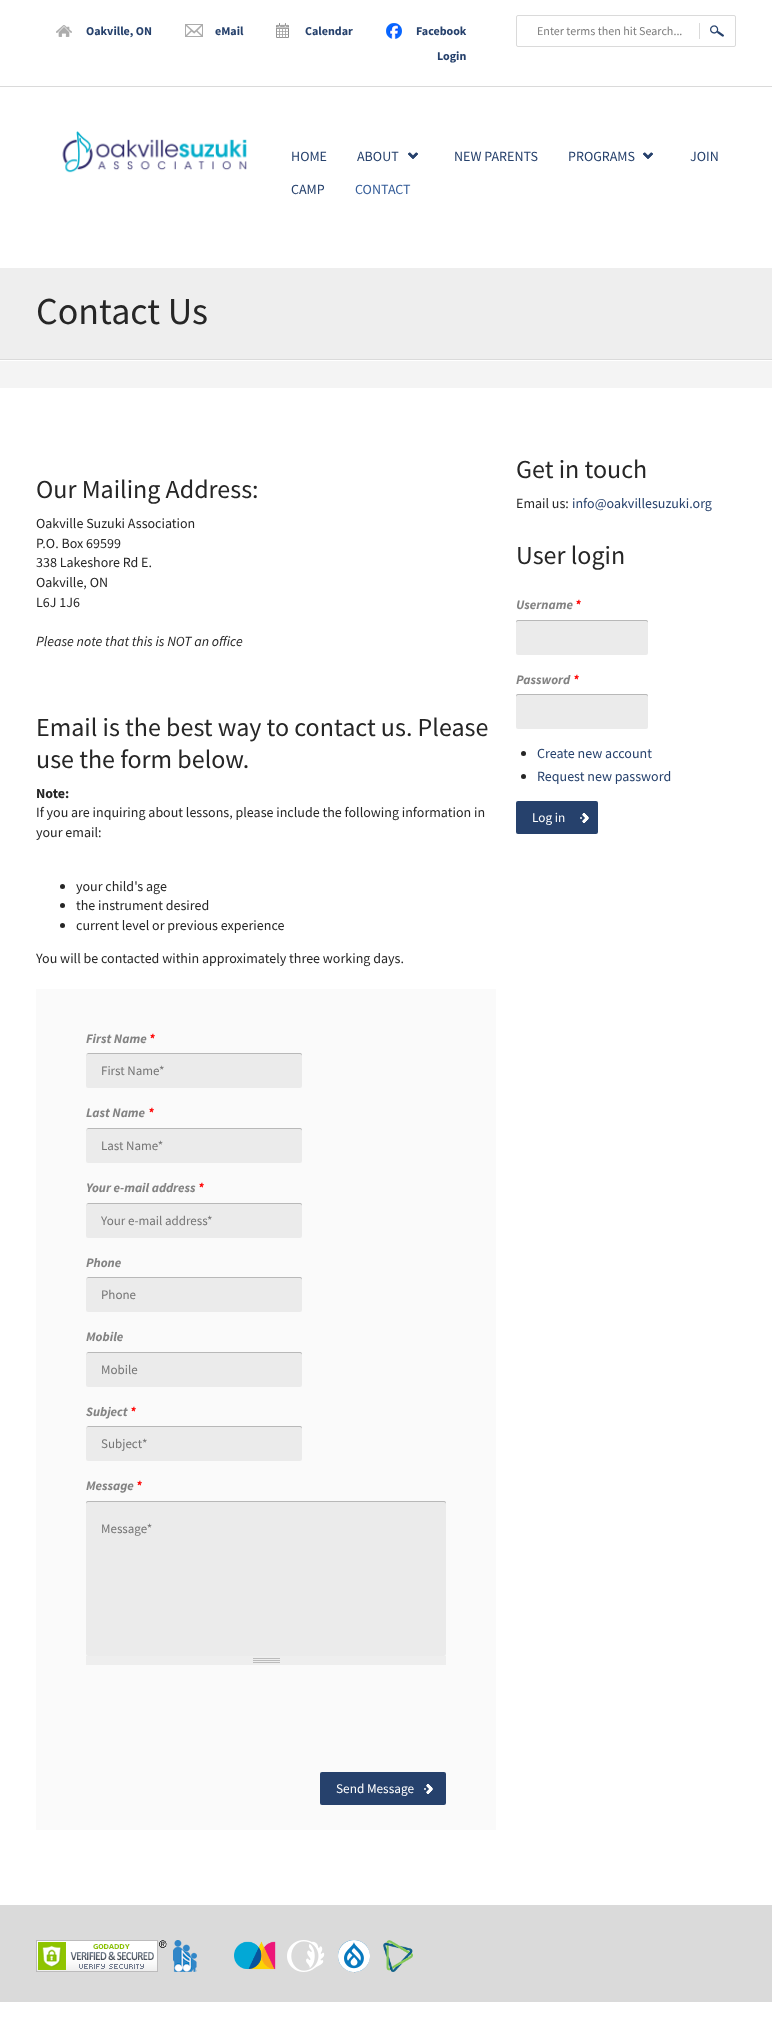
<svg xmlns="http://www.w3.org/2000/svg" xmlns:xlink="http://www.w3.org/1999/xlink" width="772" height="2022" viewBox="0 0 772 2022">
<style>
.cls-1{font:bold 12px Source Sans Pro;fill:#26416c}
.cls-2{font:12px Source Sans Pro;fill:#7d7d7d}
.cls-3{font:14px Source Sans Pro;fill:#26416c}
.cls-4{font:14px Source Sans Pro;fill:#355d99}
.cls-5{font:38px Source Sans Pro;fill:#262626}
.cls-6{font:26px Source Sans Pro;fill:#262626}
.cls-7{font:14px Source Sans Pro;fill:#262626}
.cls-8{font:italic 14px Source Sans Pro;fill:#262626}
.cls-9{font:bold 14px Source Sans Pro;fill:#262626}
.cls-10{font:italic bold 13px Source Sans Pro;fill:#838383}
.cls-11{font:italic bold 13px Source Sans Pro;fill:#ff0000}
.cls-12{font:13px Source Sans Pro;fill:#757575}
.cls-13{font:13.25px Source Sans Pro;fill:#ffffff}
</style>
<rect width="100%" height="100%" fill="#ffffff"/>
<rect fill="#dadada" x="0" y="86" width="772" height="1"/>
<image xlink:href="image0.png" x="56" y="25" width="16" height="12"/>
<image xlink:href="image1.png" x="185" y="24" width="18" height="13"/>
<image xlink:href="image2.png" x="276" y="23" width="13" height="15"/>
<image xlink:href="image3.png" x="386" y="23" width="16" height="16"/>
<rect fill="none" stroke="#dadada" x="516.5" y="15.5" width="219" height="31" rx="1.5"/>
<rect fill="#dadada" x="699" y="23" width="1" height="16"/>
<image xlink:href="image4.png" x="710" y="25" width="14" height="12"/>
<image xlink:href="image5.png" x="62" y="131" width="185" height="42"/>
<image xlink:href="image6.png" x="408" y="152" width="10" height="7"/>
<image xlink:href="image6.png" x="643" y="152" width="10" height="7"/>
<rect fill="#eeeeee" x="0" y="268" width="772" height="91"/>
<rect fill="#dadada" x="0" y="359" width="772" height="1"/>
<rect fill="#f4f4f4" x="0" y="361" width="772" height="27"/>
<circle fill="#262626" cx="62.5" cy="886.5" r="2.5"/>
<circle fill="#262626" cx="62.5" cy="905.5" r="2.5"/>
<circle fill="#262626" cx="62.5" cy="925.5" r="2.5"/>
<rect fill="#fafafa" x="36" y="989" width="460" height="841"/>
<rect fill="#ebebeb" x="86" y="1053" width="216" height="35" rx="2"/>
<path fill="#b8b8b8" d="M88 1054H300C301 1054 302 1055 302 1056C302 1055 302 1053 300 1053H88L87 1054L86 1056C86 1055 87 1054 88 1054Z"/>
<rect fill="#ebebeb" x="86" y="1128" width="216" height="35" rx="2"/>
<path fill="#b8b8b8" d="M88 1129H300C301 1129 302 1130 302 1131C302 1130 302 1128 300 1128H88L87 1129L86 1131C86 1130 87 1129 88 1129Z"/>
<rect fill="#ebebeb" x="86" y="1203" width="216" height="35" rx="2"/>
<path fill="#b8b8b8" d="M88 1204H300C301 1204 302 1205 302 1206C302 1205 302 1203 300 1203H88L87 1204L86 1206C86 1205 87 1204 88 1204Z"/>
<rect fill="#ebebeb" x="86" y="1277" width="216" height="35" rx="2"/>
<path fill="#b8b8b8" d="M88 1278H300C301 1278 302 1279 302 1280C302 1279 302 1277 300 1277H88L87 1278L86 1280C86 1279 87 1278 88 1278Z"/>
<rect fill="#ebebeb" x="86" y="1352" width="216" height="35" rx="2"/>
<path fill="#b8b8b8" d="M88 1353H300C301 1353 302 1354 302 1355C302 1354 302 1352 300 1352H88L87 1353L86 1355C86 1354 87 1353 88 1353Z"/>
<rect fill="#ebebeb" x="86" y="1426" width="216" height="35" rx="2"/>
<path fill="#b8b8b8" d="M88 1427H300C301 1427 302 1428 302 1429C302 1428 302 1426 300 1426H88L87 1427L86 1429C86 1428 87 1427 88 1427Z"/>
<rect fill="#ebebeb" x="86" y="1501" width="360" height="155" rx="2"/>
<path fill="#b8b8b8" d="M88 1502H444C445 1502 446 1503 446 1504C446 1503 446 1501 444 1501H88C86 1501 86 1503 86 1504C86 1503 87 1502 88 1502Z"/>
<rect fill="#eeeeee" x="86" y="1656" width="360" height="9"/>
<image xlink:href="image7.png" x="253" y="1658" width="27" height="5"/>
<rect fill="#26416c" x="320" y="1772" width="126" height="33" rx="2"/>
<image xlink:href="image8.png" x="424" y="1784" width="9" height="10"/>
<rect fill="#ebebeb" x="516" y="620" width="132" height="35" rx="2"/>
<path fill="#b8b8b8" d="M518 621H646C647 621 648 622 648 623C648 622 648 620 646 620H518C516 620 516 622 516 623C516 622 517 621 518 621Z"/>
<rect fill="#ebebeb" x="516" y="694" width="132" height="35" rx="2"/>
<path fill="#b8b8b8" d="M518 695H646C647 695 648 696 648 697C648 696 648 694 646 694H518C516 694 516 696 516 697C516 696 517 695 518 695Z"/>
<circle fill="#262626" cx="523.5" cy="753.5" r="2.5"/>
<circle fill="#262626" cx="523.5" cy="776.5" r="2.5"/>
<rect fill="#26416c" x="516" y="801" width="82" height="33" rx="2"/>
<image xlink:href="image8.png" x="580" y="813" width="9" height="10"/>
<rect fill="#dadada" x="0" y="1905" width="772" height="97"/>
<image xlink:href="image9.png" x="36" y="1940" width="131" height="32"/>
<image xlink:href="image10.png" x="173" y="1940" width="24" height="32"/>
<image xlink:href="image11.png" x="287" y="1940" width="38" height="32"/>
<path fill="#0678be" d="M354 1940C371 1940 376 1963 361 1970.5C358.5 1971.5 355.5 1972.5 353 1972C331.5 1969 334.5 1940 354 1940Z"/>
<image xlink:href="image12.png" x="234" y="1941" width="42" height="29"/>
<image xlink:href="image13.png" x="338" y="1940" width="32" height="32"/>
<image xlink:href="image14.png" x="383" y="1940" width="30" height="32"/>
<text class="cls-1" x="86" y="35">Oakville, ON</text>
<text class="cls-1" x="215" y="35">eMail</text>
<text class="cls-1" x="305" y="35">Calendar</text>
<text class="cls-1" x="416" y="35">Facebook</text>
<text class="cls-1" x="437" y="60">Login</text>
<text class="cls-2" x="537" y="35">Enter terms then hit Search...</text>
<text class="cls-3" x="291" y="161">HOME</text>
<text class="cls-3" x="357" y="161">ABOUT</text>
<text class="cls-3" x="454" y="161">NEW PARENTS</text>
<text class="cls-3" x="568" y="161">PROGRAMS</text>
<text class="cls-3" x="690" y="161">JOIN</text>
<text class="cls-3" x="291" y="194">CAMP</text>
<text class="cls-4" x="355" y="194">CONTACT</text>
<text class="cls-5" x="36" y="324">Contact Us</text>
<text class="cls-6" x="36" y="498">Our Mailing Address:</text>
<text class="cls-7"><tspan x="36" y="528">Oakville Suzuki Association</tspan><tspan x="36" y="548">P.O. Box 69599</tspan><tspan x="36" y="567">338 Lakeshore Rd E.</tspan><tspan x="36" y="587">Oakville, ON</tspan><tspan x="36" y="607">L6J 1J6</tspan></text>
<text class="cls-8" x="36" y="646">Please note that this is NOT an office</text>
<text class="cls-6"><tspan x="36" y="736">Email is the best way to contact us. Please</tspan><tspan x="36" y="768">use the form below.</tspan></text>
<text class="cls-9" x="36" y="798">Note:</text>
<text class="cls-7"><tspan x="36" y="817">If you are inquiring about lessons, please include the following information in</tspan><tspan x="36" y="837">your email:</tspan></text>
<text class="cls-7"><tspan x="76" y="891">your child's age</tspan><tspan x="76" y="910">the instrument desired</tspan><tspan x="76" y="930">current level or previous experience</tspan></text>
<text class="cls-7" x="36" y="963">You will be contacted within approximately three working days.</text>
<text class="cls-10" x="86" y="1043">First Name</text>
<text class="cls-11" x="149" y="1043">*</text>
<text class="cls-12" x="101" y="1075">First Name*</text>
<text class="cls-10" x="86" y="1117">Last Name</text>
<text class="cls-11" x="148" y="1117">*</text>
<text class="cls-12" x="101" y="1150">Last Name*</text>
<text class="cls-10" x="86" y="1192">Your e-mail address</text>
<text class="cls-11" x="198" y="1192">*</text>
<text class="cls-12" x="101" y="1225">Your e-mail address*</text>
<text class="cls-10" x="86" y="1267">Phone</text>
<text class="cls-12" x="101" y="1299">Phone</text>
<text class="cls-10" x="86" y="1341">Mobile</text>
<text class="cls-12" x="101" y="1374">Mobile</text>
<text class="cls-10" x="86" y="1416">Subject</text>
<text class="cls-11" x="130" y="1416">*</text>
<text class="cls-12" x="101" y="1448">Subject*</text>
<text class="cls-10" x="86" y="1490">Message</text>
<text class="cls-11" x="136" y="1490">*</text>
<text class="cls-12" x="101" y="1533">Message*</text>
<text class="cls-13" x="336" y="1793">Send Message</text>
<text class="cls-6" x="516" y="478">Get in touch</text>
<text class="cls-7" x="516" y="508">Email us:</text>
<text class="cls-3" x="572" y="508">info@oakvillesuzuki.org</text>
<text class="cls-6" x="516" y="564">User login</text>
<text class="cls-10" x="516" y="609">Username</text>
<text class="cls-11" x="575" y="609">*</text>
<text class="cls-10" x="516" y="684">Password</text>
<text class="cls-11" x="573" y="684">*</text>
<text class="cls-3"><tspan x="537" y="758">Create new account</tspan><tspan x="537" y="781">Request new password</tspan></text>
<text class="cls-13" x="532" y="822">Log in</text>
</svg>
